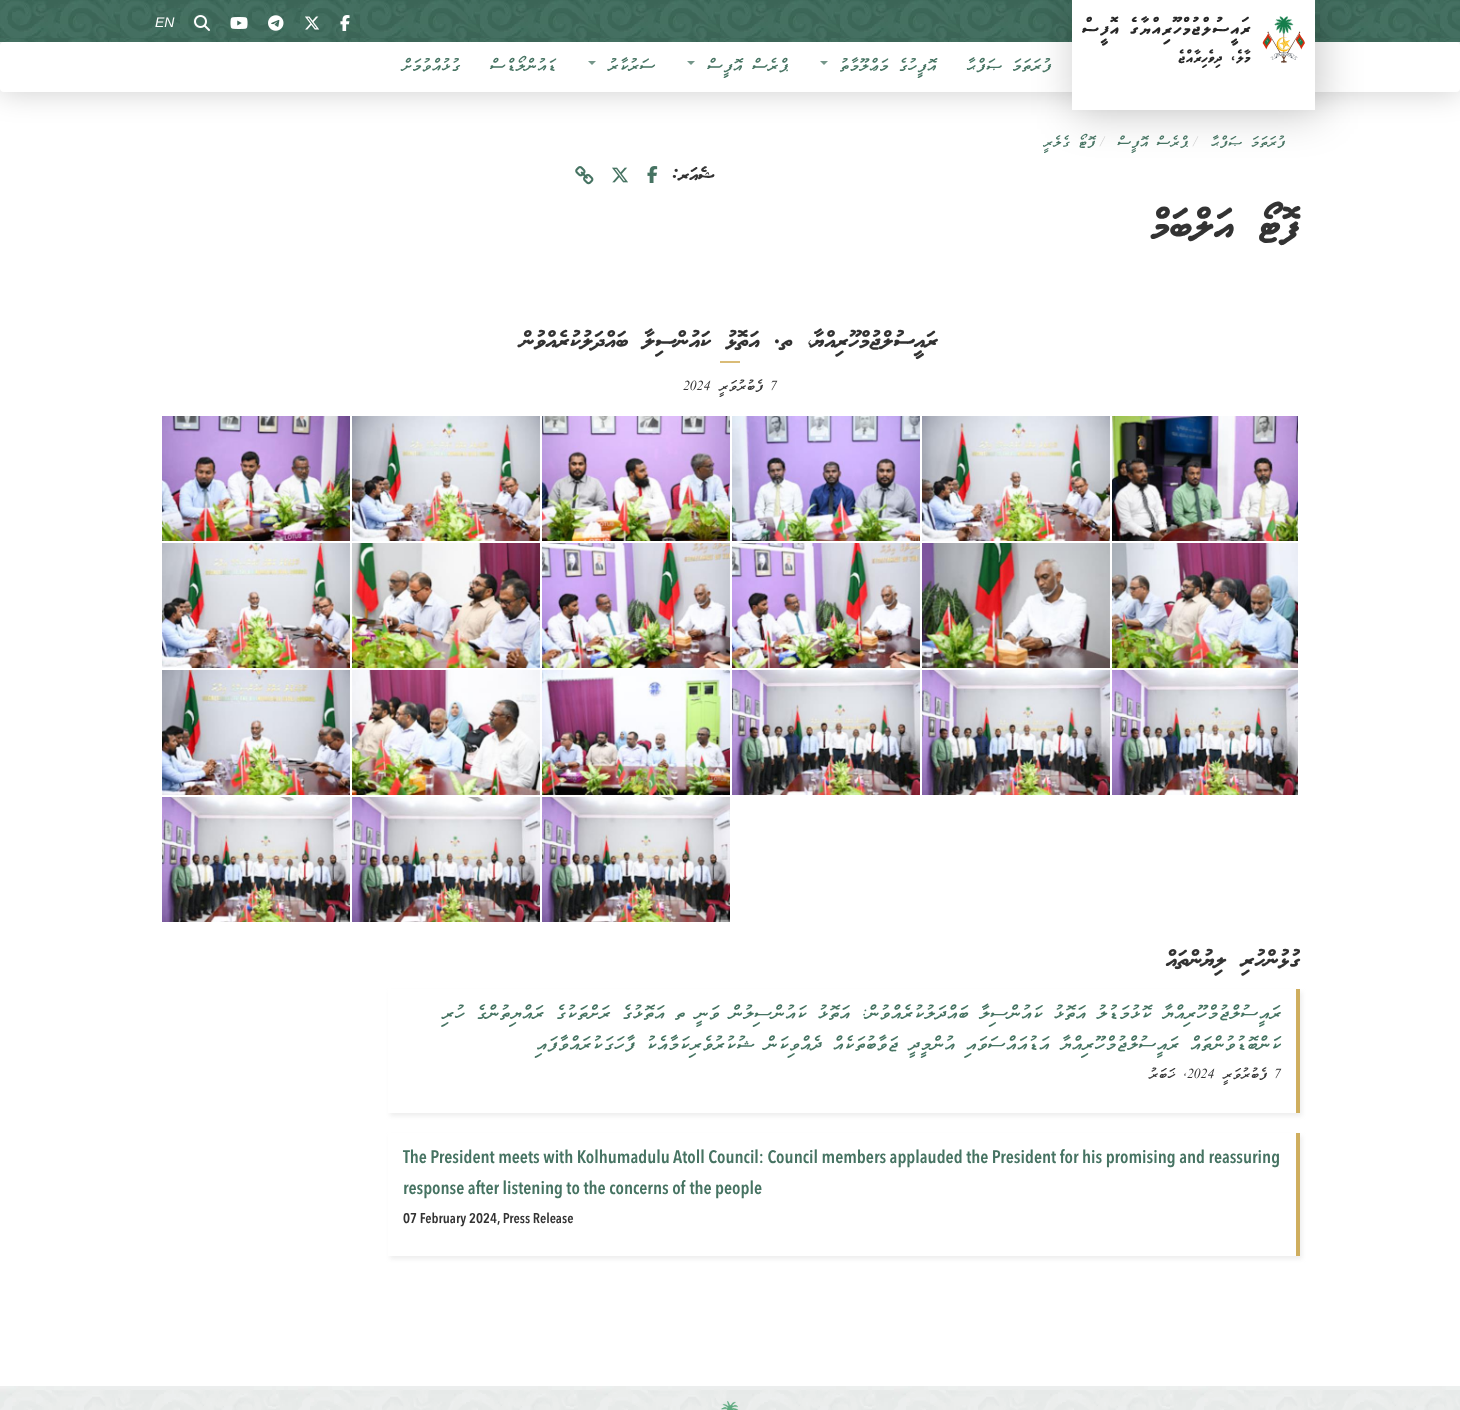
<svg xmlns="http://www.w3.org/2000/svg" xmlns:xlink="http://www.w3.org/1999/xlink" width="1460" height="1410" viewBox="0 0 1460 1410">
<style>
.cls-1{font:italic 14px Liberation Sans;fill:#ffffff}
.cls-2{font:italic 16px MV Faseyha;direction:rtl;fill:#467362}
.cls-3{font:italic 14px MV Faseyha;direction:rtl;fill:#467362}
.cls-4{font:italic 14px MV Faseyha;fill:#cccccc}
.cls-5{font:20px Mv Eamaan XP;direction:rtl;fill:#333333}
.cls-6{font:45px Mv Eamaan XP;direction:rtl;fill:#333333}
.cls-7{font:25px Mv Eamaan XP;direction:rtl;fill:#333333}
.cls-8{font:italic 14px MV Faseyha;fill:#333333}
.cls-9{font:italic 14px MV Faseyha;direction:rtl;fill:#333333}
.cls-10{font:italic 18px MV Faseyha;direction:rtl;fill:#467362}
.cls-11{font:600 18px Avenir Next;fill:#467362}
.cls-12{font:600 14px Avenir Next;fill:#333333}
</style>
<defs>
<clipPath id="clip1"><path d="M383 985H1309V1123H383ZM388 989H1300V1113H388Z" clip-rule="evenodd"/></clipPath>
<clipPath id="clip2"><path d="M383 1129H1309V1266H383ZM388 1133H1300V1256H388Z" clip-rule="evenodd"/></clipPath>
</defs>
<rect width="100%" height="100%" fill="#ffffff"/>
<rect fill="#000000" fill-opacity="0.2" filter="blur(15px)" x="0" y="42" width="1460" height="50" rx="4"/>
<image xlink:href="image0.png" x="0" y="0" width="1460" height="42"/>
<rect fill="#ffffff" x="0" y="42" width="1460" height="50" rx="4"/>
<rect fill="#000000" fill-opacity="0.2" filter="blur(20.5px)" x="1074" y="1" width="247" height="114"/>
<rect fill="#ffffff" x="1072" y="0" width="243" height="110"/>
<image xlink:href="image1.png" x="1082" y="16" width="223" height="52"/>
<image xlink:href="image2.png" x="340" y="15" width="10" height="16"/>
<image xlink:href="image3.png" x="305" y="16" width="15" height="14"/>
<image xlink:href="image4.png" x="268" y="15" width="16" height="16"/>
<image xlink:href="image5.png" x="230" y="17" width="18" height="12"/>
<image xlink:href="image6.png" x="194" y="15" width="16" height="16"/>
<path fill="#749689" d="M820 61H828L824 65Z"/>
<path fill="#749689" d="M687 61H695L691 65Z"/>
<path fill="#749689" d="M588 61H596L592 65Z"/>
<image xlink:href="image7.png" x="647" y="166" width="11" height="17"/>
<image xlink:href="image8.png" x="612" y="167" width="16" height="16"/>
<image xlink:href="image9.png" x="575" y="166" width="19" height="19"/>
<rect fill="#dabc77" x="720" y="361" width="20" height="2"/>
<image xlink:href="image10.png" x="1112" y="416" width="186" height="125"/>
<image xlink:href="image11.png" x="922" y="416" width="188" height="125"/>
<image xlink:href="image12.png" x="732" y="416" width="188" height="125"/>
<image xlink:href="image13.png" x="542" y="416" width="188" height="125"/>
<image xlink:href="image14.png" x="352" y="416" width="188" height="125"/>
<image xlink:href="image15.png" x="162" y="416" width="188" height="125"/>
<image xlink:href="image16.png" x="1112" y="543" width="186" height="125"/>
<image xlink:href="image17.png" x="922" y="543" width="188" height="125"/>
<image xlink:href="image18.png" x="732" y="543" width="188" height="125"/>
<image xlink:href="image19.png" x="542" y="543" width="188" height="125"/>
<image xlink:href="image20.png" x="352" y="543" width="188" height="125"/>
<image xlink:href="image21.png" x="162" y="543" width="188" height="125"/>
<image xlink:href="image22.png" x="1112" y="670" width="186" height="125"/>
<image xlink:href="image23.png" x="922" y="670" width="188" height="125"/>
<image xlink:href="image24.png" x="732" y="670" width="188" height="125"/>
<image xlink:href="image25.png" x="542" y="670" width="188" height="125"/>
<image xlink:href="image26.png" x="352" y="670" width="188" height="125"/>
<image xlink:href="image27.png" x="162" y="670" width="188" height="125"/>
<image xlink:href="image28.png" x="542" y="797" width="188" height="125"/>
<image xlink:href="image29.png" x="352" y="797" width="188" height="125"/>
<image xlink:href="image30.png" x="162" y="797" width="188" height="125"/>
<g clip-path="url(#clip1)">
<rect fill="#eeeeee" filter="blur(2px)" x="390" y="992" width="912" height="124"/>
</g>
<rect fill="#cfae5f" x="1296" y="989" width="4" height="124"/>
<g clip-path="url(#clip2)">
<rect fill="#eeeeee" filter="blur(2px)" x="390" y="1136" width="912" height="123"/>
</g>
<rect fill="#cfae5f" x="1296" y="1133" width="4" height="123"/>
<image xlink:href="image31.png" x="0" y="1386" width="1460" height="24"/>
<image xlink:href="image32.png" x="721" y="1401" width="18" height="9"/>
<text class="cls-1" x="155" y="27">EN</text>
<text class="cls-2" x="1051" y="70">ފުރަތަމަ ޞަފްޙާ</text>
<text class="cls-2" x="936" y="70">އޮފީހުގެ މަޢްލޫމާތު</text>
<text class="cls-2" x="788" y="70">ޕްރެސް އޮފީސް</text>
<text class="cls-2" x="655" y="70">ސަރުކާރު</text>
<text class="cls-2" x="556" y="70">ޑައުންލޯޑްސް</text>
<text class="cls-2" x="460" y="70">ގުޅުއްވުމަށް</text>
<text class="cls-3" x="1285" y="146">ފުރަތަމަ ޞަފްޙާ</text>
<text class="cls-4" x="1193" y="146">/</text>
<text class="cls-3" x="1188" y="146">ޕްރެސް އޮފީސް</text>
<text class="cls-4" x="1100" y="146">/</text>
<text class="cls-3" x="1095" y="146">ފޮޓޯ ގެލެރީ</text>
<text class="cls-5" x="715" y="180">ޝެއަރ:</text>
<text class="cls-6" x="1300" y="237">ފޮޓޯ އަލްބަމް</text>
<text class="cls-7" x="938" y="347">ރައީސުލްޖުމްހޫރިއްޔާ، ތ. އަތޮޅު ކައުންސިލާ ބައްދަލުކުރެއްވުން</text>
<text class="cls-8" x="771" y="390">7</text>
<text class="cls-9" x="763" y="390">ފެބުރުވަރީ</text>
<text class="cls-8" x="683" y="390">2024</text>
<text class="cls-7" x="1300" y="966">ގުޅުންހުރި ލިޔުންތައް</text>
<text class="cls-10"><tspan x="1281" y="1018">ރައީސުލްޖުމްހޫރިއްޔާ ކޮޅުމަޑުލު އަތޮޅު ކައުންސިލާ ބައްދަލުކުރެއްވުން: އަތޮޅު ކައުންސިލުން ވަނީ ތ އަތޮޅުގެ ރަށްތަކުގެ ރައްޔިތުންގެ ހުރި</tspan><tspan x="1281" y="1049">ކަންބޮޑުވުންތައް ރައީސުލްޖުމްހޫރިއްޔާ އަޑުއައްސަވައި އުންމީދީ ޖަވާބުތަކެއް ދެއްވިކަން ޝުކުރުވެރިކަމާއެކު ފާހަގަކުރައްވާފައި</tspan></text>
<text class="cls-8" x="1275" y="1078">7</text>
<text class="cls-9" x="1267" y="1078">ފެބުރުވަރީ</text>
<text class="cls-8" x="1187" y="1078">2024</text>
<text class="cls-9" x="1187" y="1078">, ޚަބަރު</text>
<text class="cls-11"><tspan x="403" y="1163">The President meets with Kolhumadulu Atoll Council: Council members applauded the President for his promising and reassuring</tspan><tspan x="403" y="1194">response after listening to the concerns of the people</tspan></text>
<text class="cls-12" x="403" y="1223">07 February 2024, Press Release</text>
</svg>
